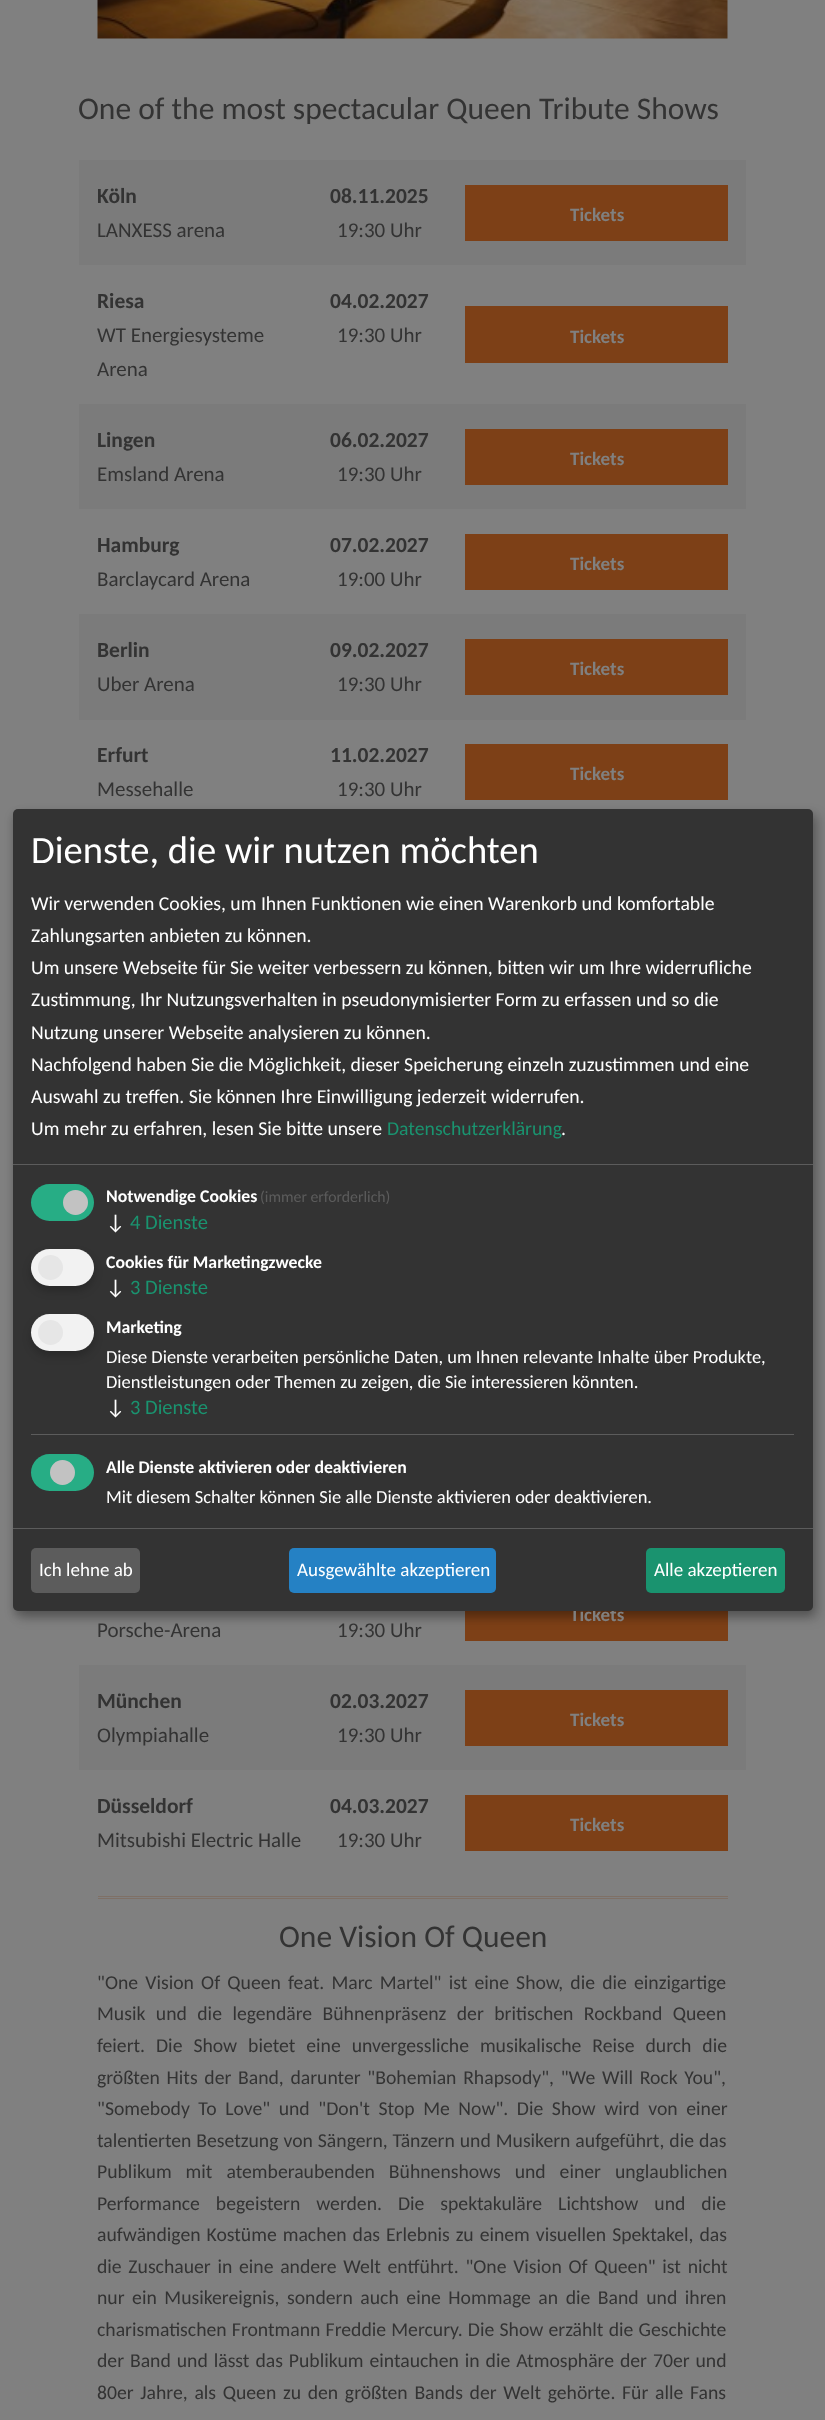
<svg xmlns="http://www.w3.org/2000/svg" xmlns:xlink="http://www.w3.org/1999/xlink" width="825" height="2420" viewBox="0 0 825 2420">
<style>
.cls-1{font:31.5px Carlito;fill:#333333}
.cls-2{font:bold 21.5px Carlito;fill:#333333}
.cls-3{font:21px Carlito;fill:#333333}
.cls-4{font:bold 19px Carlito;fill:#808080}
.cls-5{font:19.7px Carlito;fill:#333333}
.cls-6{font:38.6px Carlito;fill:#ffffff}
.cls-7{font:19.7px Carlito;fill:#ffffff}
.cls-8{font:19.7px Carlito;fill:#1a936f}
.cls-9{font:bold 17.75px Carlito;fill:#ffffff}
.cls-10{font:15.75px Carlito;fill:#5c5c5c}
.cls-11{font:21px Carlito;fill:#ffffff}
.cls-12{font:20.5px Carlito;fill:#1a936f}
.cls-13{font:18.45px Carlito;fill:#ffffff}
.cls-14{font:19px Carlito;fill:#ffffff}
</style>
<rect width="100%" height="100%" fill="#808080"/>
<image xlink:href="image0.png" x="97" y="0" width="631" height="39"/>
<rect fill="#7b7b7b" x="79" y="160" width="667" height="105"/>
<rect fill="#7d4017" x="465" y="185" width="263" height="56"/>
<rect fill="#7d4017" x="465" y="306" width="263" height="57"/>
<rect fill="#7b7b7b" x="79" y="404" width="667" height="105"/>
<rect fill="#7d4017" x="465" y="429" width="263" height="56"/>
<rect fill="#7d4017" x="465" y="534" width="263" height="56"/>
<rect fill="#7b7b7b" x="79" y="614" width="667" height="106"/>
<rect fill="#7d4017" x="465" y="639" width="263" height="56"/>
<rect fill="#7d4017" x="465" y="744" width="263" height="56"/>
<rect fill="#7d4017" x="465" y="1611" width="263" height="30"/>
<rect fill="#7b7b7b" x="79" y="1665" width="667" height="105"/>
<rect fill="#7d4017" x="465" y="1690" width="263" height="56"/>
<rect fill="#7d4017" x="465" y="1795" width="263" height="56"/>
<rect fill="#7f7066" x="98" y="1896" width="630" height="1"/>
<rect fill="#7f7066" x="98" y="1898" width="630" height="1"/>
<rect fill="#000000" fill-opacity="0.19" filter="blur(6px)" x="19" y="815" width="800" height="803" rx="5"/>
<rect fill="#000000" fill-opacity="0.2" filter="blur(4px)" x="13" y="814" width="800" height="802" rx="5"/>
<text class="cls-1" x="78" y="119">One of the most spectacular Queen Tribute Shows</text>
<text class="cls-2" x="97" y="203">Köln</text>
<text class="cls-3" x="97" y="237">LANXESS arena</text>
<text class="cls-2" x="330" y="203">08.11.2025</text>
<text class="cls-3" x="337" y="237">19:30 Uhr</text>
<text class="cls-4" x="570" y="221">Tickets</text>
<text class="cls-2" x="97" y="308">Riesa</text>
<text class="cls-3"><tspan x="97" y="342">WT Energiesysteme</tspan><tspan x="97" y="376">Arena</tspan></text>
<text class="cls-2" x="330" y="308">04.02.2027</text>
<text class="cls-3" x="337" y="342">19:30 Uhr</text>
<text class="cls-4" x="570" y="343">Tickets</text>
<text class="cls-2" x="97" y="447">Lingen</text>
<text class="cls-3" x="97" y="481">Emsland Arena</text>
<text class="cls-2" x="330" y="447">06.02.2027</text>
<text class="cls-3" x="337" y="481">19:30 Uhr</text>
<text class="cls-4" x="570" y="465">Tickets</text>
<text class="cls-2" x="97" y="552">Hamburg</text>
<text class="cls-3" x="97" y="586">Barclaycard Arena</text>
<text class="cls-2" x="330" y="552">07.02.2027</text>
<text class="cls-3" x="337" y="586">19:00 Uhr</text>
<text class="cls-4" x="570" y="570">Tickets</text>
<text class="cls-2" x="97" y="657">Berlin</text>
<text class="cls-3" x="97" y="691">Uber Arena</text>
<text class="cls-2" x="330" y="657">09.02.2027</text>
<text class="cls-3" x="337" y="691">19:30 Uhr</text>
<text class="cls-4" x="570" y="675">Tickets</text>
<text class="cls-2" x="97" y="762">Erfurt</text>
<text class="cls-3" x="97" y="796">Messehalle</text>
<text class="cls-2" x="330" y="762">11.02.2027</text>
<text class="cls-3" x="337" y="796">19:30 Uhr</text>
<text class="cls-4" x="570" y="780">Tickets</text>
<text class="cls-4" x="570" y="1621">Tickets</text>
<text class="cls-3" x="97" y="1637">Porsche-Arena</text>
<text class="cls-3" x="337" y="1637">19:30 Uhr</text>
<text class="cls-2" x="97" y="1708">München</text>
<text class="cls-3" x="97" y="1742">Olympiahalle</text>
<text class="cls-2" x="330" y="1708">02.03.2027</text>
<text class="cls-3" x="337" y="1742">19:30 Uhr</text>
<text class="cls-4" x="570" y="1726">Tickets</text>
<text class="cls-2" x="97" y="1813">Düsseldorf</text>
<text class="cls-3" x="97" y="1847">Mitsubishi Electric Halle</text>
<text class="cls-2" x="330" y="1813">04.03.2027</text>
<text class="cls-3" x="337" y="1847">19:30 Uhr</text>
<text class="cls-4" x="570" y="1831">Tickets</text>
<text class="cls-1" x="279" y="1947">One Vision Of Queen</text>
<text class="cls-5"><tspan x="97" y="1989" word-spacing="2.75">"One Vision Of Queen feat. Marc Martel" ist eine Show, die die einzigartige</tspan><tspan x="97" y="2020" word-spacing="6">Musik und die legendäre Bühnenpräsenz der britischen Rockband Queen</tspan><tspan x="97" y="2052" word-spacing="6.5">feiert. Die Show bietet eine unvergessliche musikalische Reise durch die</tspan><tspan x="97" y="2084" word-spacing="2.25">größten Hits der Band, darunter "Bohemian Rhapsody", "We Will Rock You",</tspan><tspan x="97" y="2115" word-spacing="4.1">"Somebody To Love" und "Don't Stop Me Now". Die Show wird von einer</tspan><tspan x="97" y="2147" word-spacing="0.5">talentierten Besetzung von Sängern, Tänzern und Musikern aufgeführt, die das</tspan><tspan x="97" y="2178" word-spacing="9.5">Publikum mit atemberaubenden Bühnenshows und einer unglaublichen</tspan><tspan x="97" y="2210" word-spacing="11.5">Performance begeistern werden. Die spektakuläre Lichtshow und die</tspan><tspan x="97" y="2241" word-spacing="1.5">aufwändigen Kostüme machen das Erlebnis zu einem visuellen Spektakel, das</tspan><tspan x="97" y="2273" word-spacing="2.25">die Zuschauer in eine andere Welt entführt. "One Vision Of Queen" ist nicht</tspan><tspan x="97" y="2304" word-spacing="3.1">nur ein Musikereignis, sondern auch eine Hommage an die Band und ihren</tspan><tspan x="97" y="2336" word-spacing="0.75">charismatischen Frontmann Freddie Mercury. Die Show erzählt die Geschichte</tspan><tspan x="97" y="2367" word-spacing="1.5">der Band und lässt das Publikum eintauchen in die Atmosphäre der 70er und</tspan><tspan x="97" y="2399" word-spacing="2.25">80er Jahre, als Queen zu den größten Bands der Welt gehörte. Für alle Fans</tspan></text>
<rect fill="#333333" x="13" y="809" width="800" height="802" rx="5"/>
<rect fill="#5c5c5c" x="13" y="1164" width="800" height="1"/>
<text class="cls-6" x="31" y="863">Dienste, die wir nutzen möchten</text>
<text class="cls-7"><tspan x="31" y="910">Wir verwenden Cookies, um Ihnen Funktionen wie einen Warenkorb und komfortable</tspan><tspan x="31" y="942">Zahlungsarten anbieten zu können.</tspan><tspan x="31" y="974">Um unsere Webseite für Sie weiter verbessern zu können, bitten wir um Ihre widerrufliche</tspan><tspan x="31" y="1006">Zustimmung, Ihr Nutzungsverhalten in pseudonymisierter Form zu erfassen und so die</tspan><tspan x="31" y="1039">Nutzung unserer Webseite analysieren zu können.</tspan><tspan x="31" y="1071">Nachfolgend haben Sie die Möglichkeit, dieser Speicherung einzeln zuzustimmen und eine</tspan><tspan x="31" y="1103">Auswahl zu treffen. Sie können Ihre Einwilligung jederzeit widerrufen.</tspan><tspan x="31" y="1135">Um mehr zu erfahren, lesen Sie bitte unsere</tspan></text>
<text class="cls-8" x="387" y="1135">Datenschutzerklärung</text>
<text class="cls-7" x="561" y="1135">.</text>
<rect fill="#27ad85" x="31" y="1184" width="63" height="37" rx="18.5"/>
<circle fill="#c2c2c2" cx="75.5" cy="1202.5" r="12.5"/>
<text class="cls-9" x="106" y="1202">Notwendige Cookies</text>
<text class="cls-10" x="260" y="1202">(immer erforderlich)</text>
<text class="cls-11" x="106" y="1229">↓</text>
<text class="cls-12" x="130" y="1229">4 Dienste</text>
<rect fill="#000000" fill-opacity="0.2" filter="blur(4px)" x="31" y="1254" width="63" height="37" rx="18.5"/>
<rect fill="#f2f2f2" x="31" y="1249" width="63" height="37" rx="18.5"/>
<circle fill="#e6e6e6" cx="50.5" cy="1267.5" r="12.5"/>
<text class="cls-9" x="106" y="1268">Cookies für Marketingzwecke</text>
<text class="cls-11" x="106" y="1294">↓</text>
<text class="cls-12" x="130" y="1294">3 Dienste</text>
<rect fill="#000000" fill-opacity="0.2" filter="blur(4px)" x="31" y="1319" width="63" height="37" rx="18.5"/>
<rect fill="#f2f2f2" x="31" y="1314" width="63" height="37" rx="18.5"/>
<circle fill="#e6e6e6" cx="50.5" cy="1332.5" r="12.5"/>
<text class="cls-9" x="106" y="1333">Marketing</text>
<text class="cls-13"><tspan x="106" y="1363">Diese Dienste verarbeiten persönliche Daten, um Ihnen relevante Inhalte über Produkte,</tspan><tspan x="106" y="1388">Dienstleistungen oder Themen zu zeigen, die Sie interessieren könnten.</tspan></text>
<text class="cls-11" x="106" y="1414">↓</text>
<text class="cls-12" x="130" y="1414">3 Dienste</text>
<rect fill="#5c5c5c" x="31" y="1434" width="763" height="1"/>
<rect fill="#27ad85" x="31" y="1454" width="63" height="37" rx="18.5"/>
<circle fill="#c2c2c2" cx="62.5" cy="1472.5" r="12.5"/>
<text class="cls-9" x="106" y="1473">Alle Dienste aktivieren oder deaktivieren</text>
<text class="cls-13" x="106" y="1503">Mit diesem Schalter können Sie alle Dienste aktivieren oder deaktivieren.</text>
<rect fill="#5c5c5c" x="13" y="1528" width="800" height="1"/>
<rect fill="#5c5c5c" x="31" y="1548" width="109" height="45" rx="5"/>
<text class="cls-14" x="39" y="1576">Ich lehne ab</text>
<rect fill="#2581c4" x="289" y="1548" width="207" height="45" rx="5"/>
<text class="cls-14" x="297" y="1576">Ausgewählte akzeptieren</text>
<rect fill="#1a936f" x="646" y="1548" width="139" height="45" rx="5"/>
<text class="cls-14" x="654" y="1576">Alle akzeptieren</text>
</svg>
